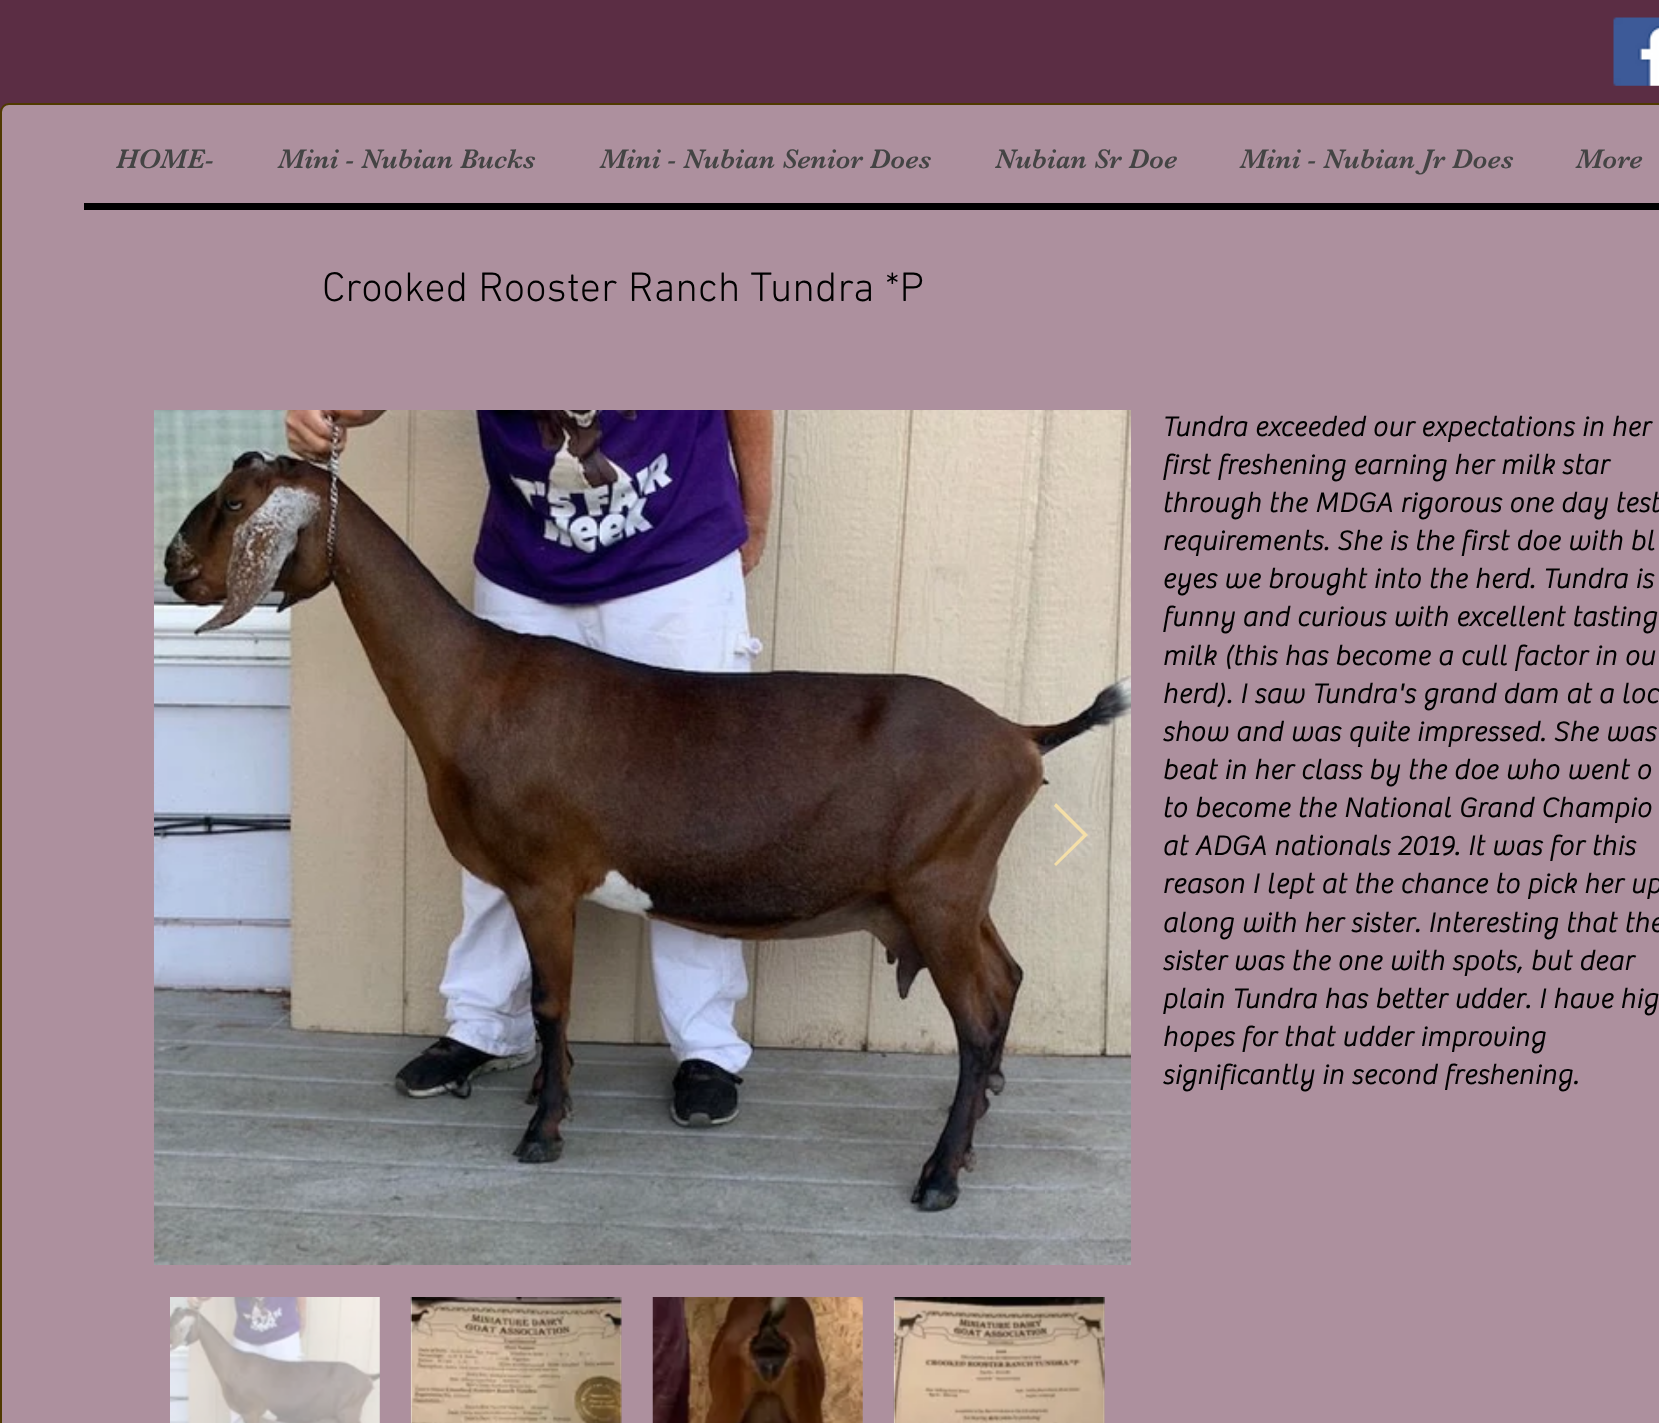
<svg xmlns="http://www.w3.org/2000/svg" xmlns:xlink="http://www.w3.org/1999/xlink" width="1659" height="1423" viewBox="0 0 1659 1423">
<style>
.cls-1{font:28px 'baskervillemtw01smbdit';fill:#444444}
.cls-2{font:300 42px 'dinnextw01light';fill:#000000}
.cls-3{font:bold 28px 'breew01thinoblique';letter-spacing:0.85px;fill:#000000}
</style>
<rect width="100%" height="100%" fill="#5b2d44"/>
<image xlink:href="image0.png" x="1613" y="17" width="46" height="69"/>
<rect fill="#ad909e" stroke="#4f3900" stroke-width="2" x="1" y="104" width="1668" height="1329" rx="8"/>
<rect fill="#000000" x="84" y="203" width="1575" height="7"/>
<image xlink:href="image1.png" x="154" y="410" width="977" height="855"/>
<path fill="#f9e2a6" fill-opacity="0.9" d="M1054 806L1056 803L1088 835L1056 866L1054 864L1083 835Z"/>
<image xlink:href="image2.png" x="170" y="1297" width="210" height="126"/>
<rect fill="#ffffff" x="411" y="1297" width="210" height="126"/>
<image xlink:href="image3.png" x="410" y="1297" width="212" height="126"/>
<image xlink:href="image4.png" x="652" y="1297" width="211" height="126"/>
<rect fill="#ffffff" x="894" y="1297" width="210" height="126"/>
<image xlink:href="image5.png" x="893" y="1297" width="212" height="126"/>
<text class="cls-1" x="116" y="168">HOME-</text>
<text class="cls-1" x="278" y="168">Mini - Nubian Bucks</text>
<text class="cls-1" x="600" y="168">Mini - Nubian Senior Does</text>
<text class="cls-1" x="995" y="168">Nubian Sr Doe</text>
<text class="cls-1" x="1240" y="168">Mini - Nubian Jr Does</text>
<text class="cls-1" x="1576" y="168">More</text>
<text class="cls-2" x="322" y="301">Crooked Rooster Ranch Tundra *P</text>
<text class="cls-3"><tspan x="1162" y="436">Tundra exceeded our expectations in her</tspan><tspan x="1162" y="474">first freshening earning her milk star</tspan><tspan x="1162" y="512">through the MDGA rigorous one day test</tspan><tspan x="1162" y="550">requirements. She is the first doe with bl</tspan><tspan x="1162" y="588">eyes we brought into the herd. Tundra is</tspan><tspan x="1162" y="626">funny and curious with excellent tasting</tspan><tspan x="1162" y="665">milk (this has become a cull factor in ou</tspan><tspan x="1162" y="703">herd). I saw Tundra's grand dam at a loc</tspan><tspan x="1162" y="741">show and was quite impressed. She was</tspan><tspan x="1162" y="779">beat in her class by the doe who went o</tspan><tspan x="1162" y="817">to become the National Grand Champio</tspan><tspan x="1162" y="855">at ADGA nationals 2019. It was for this</tspan><tspan x="1162" y="893">reason I lept at the chance to pick her up</tspan><tspan x="1162" y="932">along with her sister. Interesting that the</tspan><tspan x="1162" y="970">sister was the one with spots, but dear</tspan><tspan x="1162" y="1008">plain Tundra has better udder. I have hig</tspan><tspan x="1162" y="1046">hopes for that udder improving</tspan><tspan x="1162" y="1084">significantly in second freshening.</tspan></text>
</svg>
